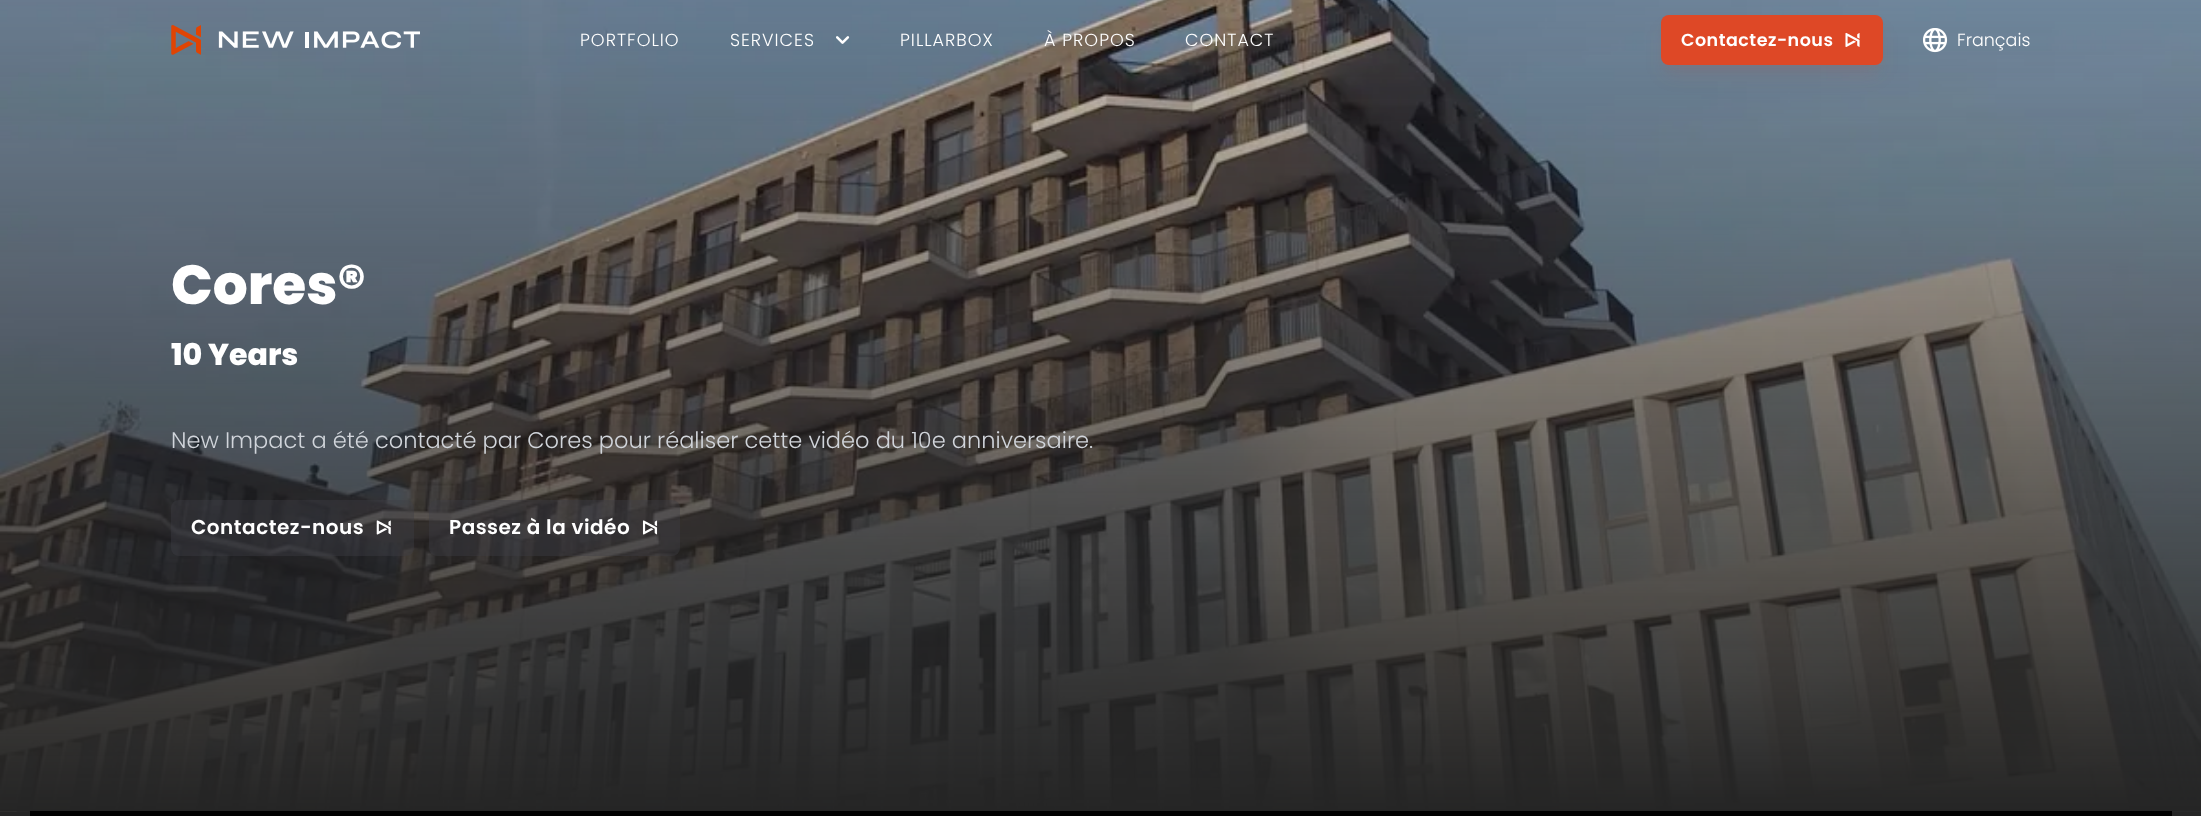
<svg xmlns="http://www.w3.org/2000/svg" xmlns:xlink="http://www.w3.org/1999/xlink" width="2201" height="816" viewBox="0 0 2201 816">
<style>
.cls-1{font:300 17.5px Poppins;letter-spacing:1px;fill:#ffffff}
.cls-2{font:600 17.5px Poppins;letter-spacing:0.5px;fill:#ffffff}
.cls-3{font:300 17.5px Poppins;fill:#ffffff}
.cls-4{font:800 55px Poppins;fill:#ffffff}
.cls-5{font:800 30px Poppins;fill:#ffffff}
.cls-6{font:300 22.5px Poppins;fill:#d1d5db}
.cls-7{font:600 20px Poppins;letter-spacing:0.5px;fill:#ffffff}
</style>
<rect width="100%" height="100%" fill="#252525"/>
<image xlink:href="image4.png" x="0" y="0" width="2201" height="812"/>
<image xlink:href="image0.png" x="171" y="25" width="249" height="30"/>
<image xlink:href="image1.png" x="836" y="36" width="14" height="8"/>
<rect fill="#de4826" fill-opacity="0.1" filter="blur(4px)" x="1666" y="25" width="212" height="40" rx="2.5"/>
<rect fill="#de4826" fill-opacity="0.1" filter="blur(9.5px)" x="1665" y="31" width="214" height="43" rx="4"/>
<rect fill="#de4826" x="1661" y="15" width="222" height="50" rx="8"/>
<image xlink:href="image2.png" x="1845" y="32" width="15" height="15"/>
<image xlink:href="image3.png" x="1923" y="28" width="25" height="25"/>
<rect fill="#3f3f46" fill-opacity="0.4" x="171" y="500" width="243" height="56" rx="8"/>
<image xlink:href="image5.png" x="376" y="520" width="15" height="15"/>
<rect fill="#3f3f46" fill-opacity="0.4" x="429" y="500" width="251" height="56" rx="8"/>
<image xlink:href="image6.png" x="642" y="520" width="16" height="15"/>
<rect fill="#000000" x="30" y="811" width="2142" height="5"/>
<text class="cls-1" x="580" y="46">PORTFOLIO</text>
<text class="cls-1" x="730" y="46">SERVICES</text>
<text class="cls-1" x="900" y="46">PILLARBOX</text>
<text class="cls-1" x="1044" y="46">À PROPOS</text>
<text class="cls-1" x="1185" y="46">CONTACT</text>
<text class="cls-2" x="1681" y="46">Contactez-nous</text>
<text class="cls-3" x="1957" y="46">Français</text>
<text class="cls-4" x="171" y="304">Cores®</text>
<text class="cls-5" x="171" y="365">10 Years</text>
<text class="cls-6" x="171" y="448">New Impact a été contacté par Cores pour réaliser cette vidéo du 10e anniversaire.</text>
<text class="cls-7" x="191" y="534">Contactez-nous</text>
<text class="cls-7" x="449" y="534">Passez à la vidéo</text>
</svg>
